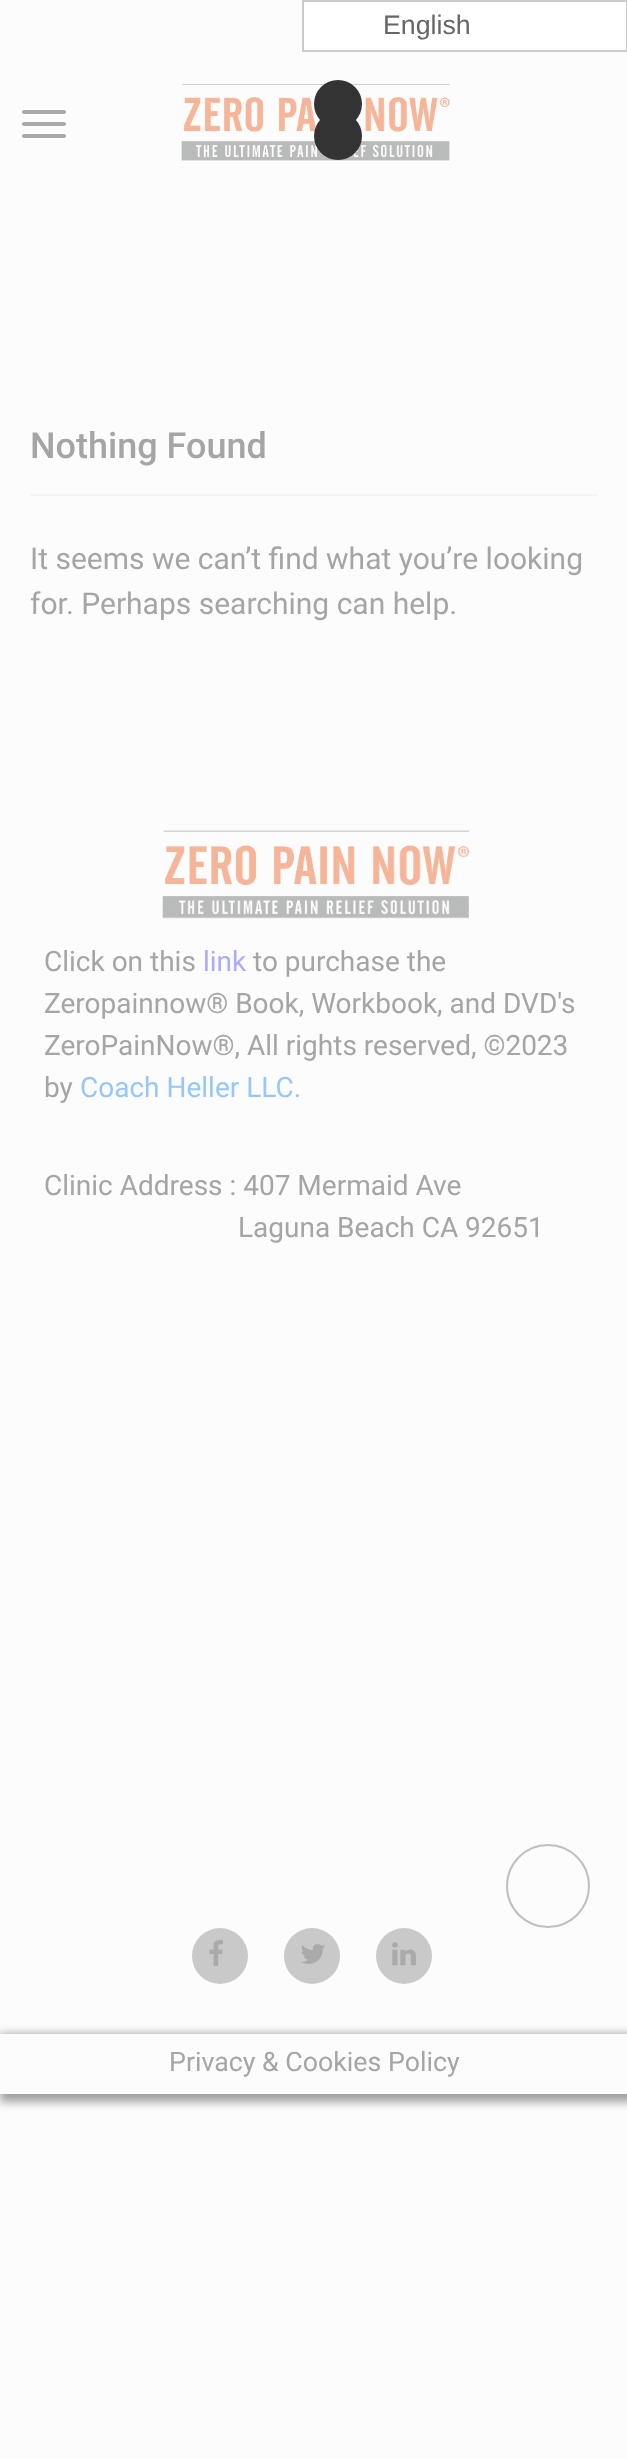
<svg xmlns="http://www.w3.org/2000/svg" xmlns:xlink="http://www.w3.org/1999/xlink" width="627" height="2459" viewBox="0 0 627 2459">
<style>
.cls-1{font:26.75px Liberation Sans;fill:#666666}
.cls-2{font:500 36px Roboto;fill:#a3a5a6}
.cls-3{font:30px Roboto;fill:#a3a5a6}
.cls-4{font:28px Roboto;fill:#a3a5a6}
.cls-5{font:28px Roboto;fill:#ababfc}
.cls-6{font:28px Roboto;fill:#96c7fc}
.cls-7{font:26.75px Roboto;fill:#a3a5a6}
</style>
<defs>
<clipPath id="clip1"><path d="M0 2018H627V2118H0ZM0 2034H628V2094H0Z" clip-rule="evenodd"/></clipPath>
</defs>
<rect width="100%" height="100%" fill="#fcfcfc"/>
<rect fill="#ffffff" stroke="#cccccc" stroke-width="2" x="303" y="1" width="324" height="50"/>
<image xlink:href="image0.png" x="181" y="84" width="269" height="77"/>
<circle fill="#333333" cx="338" cy="104" r="24"/>
<circle fill="#333333" cx="338" cy="136" r="24"/>
<rect fill="#aaaaaa" x="22" y="110" width="44" height="4" rx="2"/>
<rect fill="#aaaaaa" x="22" y="122" width="44" height="4" rx="2"/>
<rect fill="#aaaaaa" x="22" y="134" width="44" height="4" rx="2"/>
<rect fill="#f5f5f5" x="30" y="494" width="568" height="2"/>
<image xlink:href="image1.png" x="162" y="830" width="308" height="89"/>
<circle fill="none" stroke="#bfbfbf" stroke-width="2" cx="548" cy="1886" r="41"/>
<circle fill="#c9c9c9" cx="220" cy="1956" r="28"/>
<image xlink:href="image2.png" x="209" y="1940" width="14" height="26"/>
<circle fill="#c9c9c9" cx="312" cy="1956" r="28"/>
<image xlink:href="image3.png" x="301" y="1944" width="24" height="20"/>
<circle fill="#c9c9c9" cx="404" cy="1956" r="28"/>
<image xlink:href="image4.png" x="392" y="1942" width="24" height="24"/>
<g clip-path="url(#clip1)">
<rect fill="#9f9f9f" filter="blur(5px)" x="0" y="2034" width="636" height="68"/>
</g>
<text class="cls-1" x="383" y="34">English</text>
<text class="cls-2" x="30" y="458">Nothing Found</text>
<text class="cls-3"><tspan x="30" y="569">It seems we can’t find what you’re looking</tspan><tspan x="30" y="614">for. Perhaps searching can help.</tspan></text>
<text class="cls-4" x="44" y="971">Click on this</text>
<text class="cls-5" x="203" y="971">link</text>
<text class="cls-4" x="253" y="971">to purchase the</text>
<text class="cls-4"><tspan x="44" y="1013">Zeropainnow® Book, Workbook, and DVD's</tspan><tspan x="44" y="1055">ZeroPainNow®, All rights reserved, ©2023</tspan><tspan x="44" y="1097">by</tspan></text>
<text class="cls-6" x="80" y="1097">Coach Heller LLC.</text>
<text class="cls-4" x="44" y="1195">Clinic Address : 407 Mermaid Ave</text>
<text class="cls-4" x="238" y="1237">Laguna Beach CA 92651</text>
<text class="cls-7" x="169" y="2071">Privacy &amp; Cookies Policy</text>
</svg>
